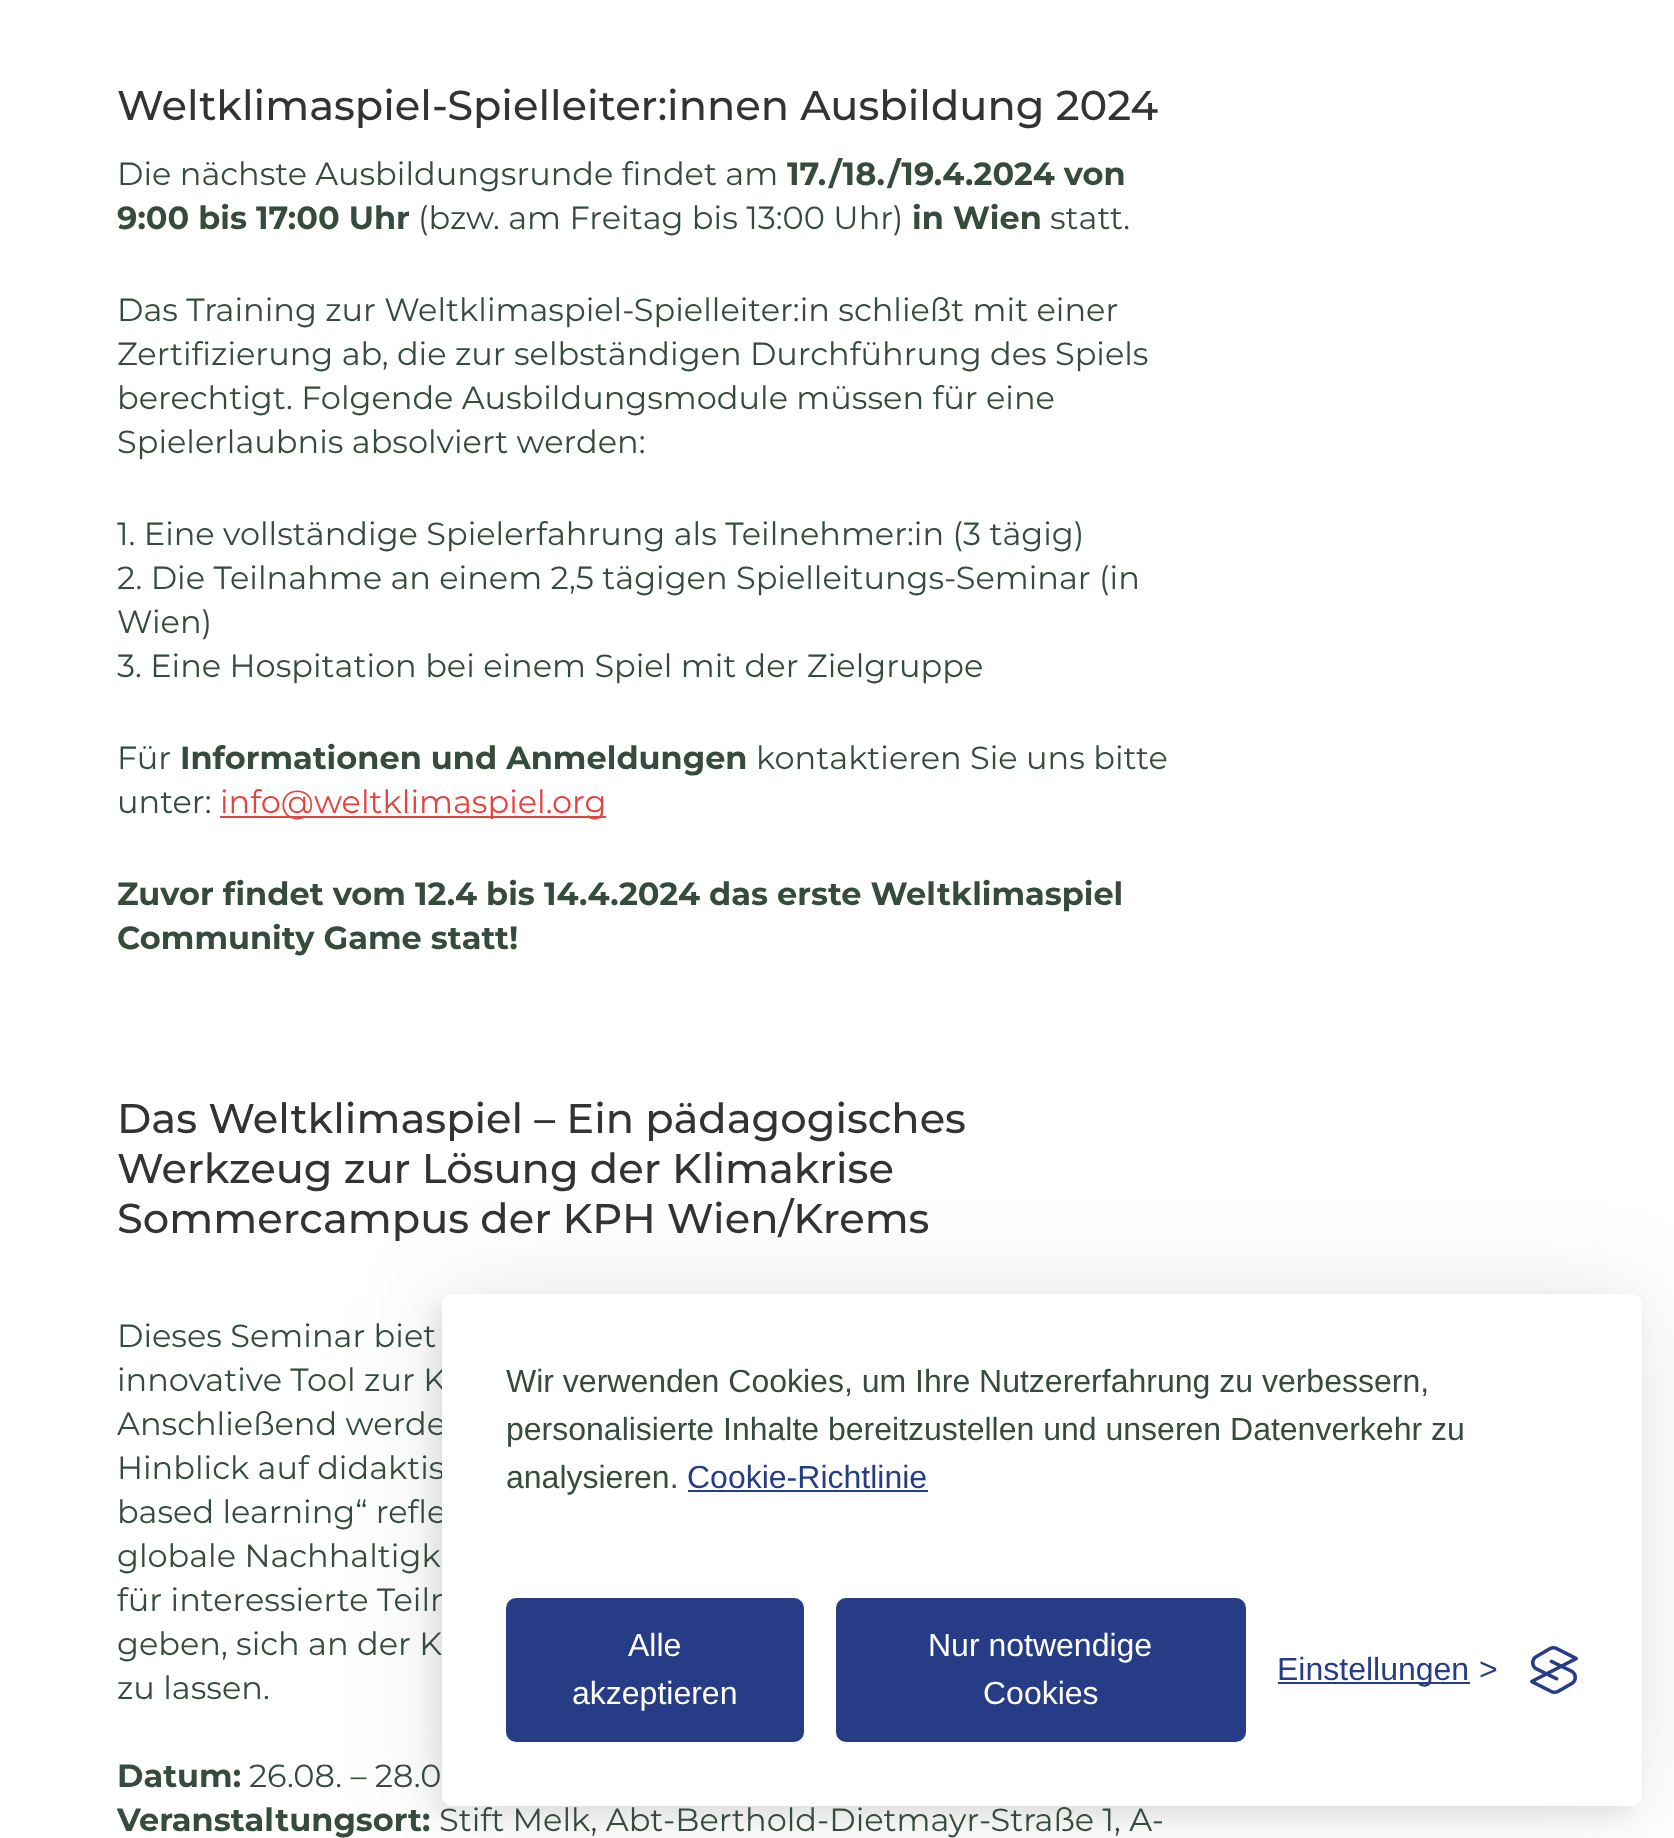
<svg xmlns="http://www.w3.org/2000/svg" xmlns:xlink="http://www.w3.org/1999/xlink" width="1674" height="1838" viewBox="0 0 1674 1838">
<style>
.cls-1{font:100 41.6px Montserrat;fill:#333333}
.cls-2{font:100 32px 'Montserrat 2';fill:#354b3b}
.cls-3{font:100 32px 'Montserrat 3';fill:#354b3b}
.cls-4{font:100 32px 'Montserrat 2';fill:#e6433e}
.cls-5{font:32px Liberation Sans;fill:#354b3b}
.cls-6{font:32px Liberation Sans;fill:#263c87}
.cls-7{font:32px Liberation Sans;fill:#ffffff}
</style>
<rect width="100%" height="100%" fill="#ffffff"/>
<rect fill="#e6433e" x="220" y="816" width="386" height="2"/>
<rect fill="#000000" fill-opacity="0.1" filter="blur(50px)" x="442" y="1294" width="1200" height="512" rx="10"/>
<rect fill="#000000" fill-opacity="0.07" filter="blur(10px)" x="432" y="1304" width="1200" height="512" rx="10"/>
<text class="cls-1" x="117" y="120">Weltklimaspiel-Spielleiter:innen Ausbildung 2024</text>
<text class="cls-2" x="117" y="185">Die nächste Ausbildungsrunde findet am</text>
<text class="cls-3" x="787" y="185">17./18./19.4.2024 von</text>
<text class="cls-3" x="117" y="229">9:00 bis 17:00 Uhr</text>
<text class="cls-2" x="418" y="229">(bzw. am Freitag bis 13:00 Uhr)</text>
<text class="cls-3" x="912" y="229">in Wien</text>
<text class="cls-2" x="1050" y="229">statt.</text>
<text class="cls-2"><tspan x="117" y="321">Das Training zur Weltklimaspiel-Spielleiter:in schließt mit einer</tspan><tspan x="117" y="365">Zertifizierung ab, die zur selbständigen Durchführung des Spiels</tspan><tspan x="117" y="409">berechtigt. Folgende Ausbildungsmodule müssen für eine</tspan><tspan x="117" y="453">Spielerlaubnis absolviert werden:</tspan></text>
<text class="cls-2"><tspan x="117" y="545">1. Eine vollständige Spielerfahrung als Teilnehmer:in (3 tägig)</tspan><tspan x="117" y="589">2. Die Teilnahme an einem 2,5 tägigen Spielleitungs-Seminar (in</tspan><tspan x="117" y="633">Wien)</tspan><tspan x="117" y="677">3. Eine Hospitation bei einem Spiel mit der Zielgruppe</tspan></text>
<text class="cls-2" x="117" y="769">Für</text>
<text class="cls-3" x="180" y="769">Informationen und Anmeldungen</text>
<text class="cls-2" x="756" y="769">kontaktieren Sie uns bitte</text>
<text class="cls-2" x="117" y="813">unter:</text>
<text class="cls-4" x="220" y="813">info@weltklimaspiel.org</text>
<text class="cls-3"><tspan x="117" y="905">Zuvor findet vom 12.4 bis 14.4.2024 das erste Weltklimaspiel</tspan><tspan x="117" y="949">Community Game statt!</tspan></text>
<text class="cls-1"><tspan x="117" y="1133">Das Weltklimaspiel – Ein pädagogisches</tspan><tspan x="117" y="1183">Werkzeug zur Lösung der Klimakrise</tspan><tspan x="117" y="1233">Sommercampus der KPH Wien/Krems</tspan></text>
<text class="cls-2"><tspan x="117" y="1347">Dieses Seminar biet</tspan><tspan x="117" y="1391">innovative Tool zur K</tspan><tspan x="117" y="1435">Anschließend werde</tspan><tspan x="117" y="1479">Hinblick auf didaktis</tspan><tspan x="117" y="1523">based learning“ refle</tspan><tspan x="117" y="1567">globale Nachhaltigk</tspan><tspan x="117" y="1611">für interessierte Teiln</tspan><tspan x="117" y="1655">geben, sich an der K</tspan><tspan x="117" y="1699">zu lassen.</tspan></text>
<text class="cls-3" x="117" y="1787">Datum:</text>
<text class="cls-2" x="249" y="1787">26.08. – 28.0</text>
<text class="cls-3" x="117" y="1831">Veranstaltungsort:</text>
<text class="cls-2" x="439" y="1831">Stift Melk, Abt-Berthold-Dietmayr-Straße 1, A-</text>
<rect fill="#ffffff" x="442" y="1294" width="1200" height="512" rx="10"/>
<text class="cls-5"><tspan x="506" y="1392">Wir verwenden Cookies, um Ihre Nutzererfahrung zu verbessern,</tspan><tspan x="506" y="1440">personalisierte Inhalte bereitzustellen und unseren Datenverkehr zu</tspan><tspan x="506" y="1488">analysieren.</tspan></text>
<text class="cls-6" x="687" y="1488">Cookie-Richtlinie</text>
<rect fill="#263c87" x="688" y="1490" width="240" height="2"/>
<rect fill="#263c87" stroke="#263c87" stroke-width="4" x="508" y="1600" width="294" height="140" rx="8"/>
<text class="cls-7" x="628" y="1656">Alle</text>
<text class="cls-7" x="572" y="1704">akzeptieren</text>
<rect fill="#263c87" stroke="#263c87" stroke-width="4" x="838" y="1600" width="406" height="140" rx="8"/>
<text class="cls-7" x="928" y="1656">Nur notwendige</text>
<text class="cls-7" x="983" y="1704">Cookies</text>
<rect fill="#263c87" x="1278" y="1682" width="192" height="2"/>
<text class="cls-6" x="1277" y="1680">Einstellungen</text>
<text class="cls-6" x="1479" y="1680">&gt;</text>
<image xlink:href="image0.png" x="1530" y="1646" width="48" height="48"/>
</svg>
